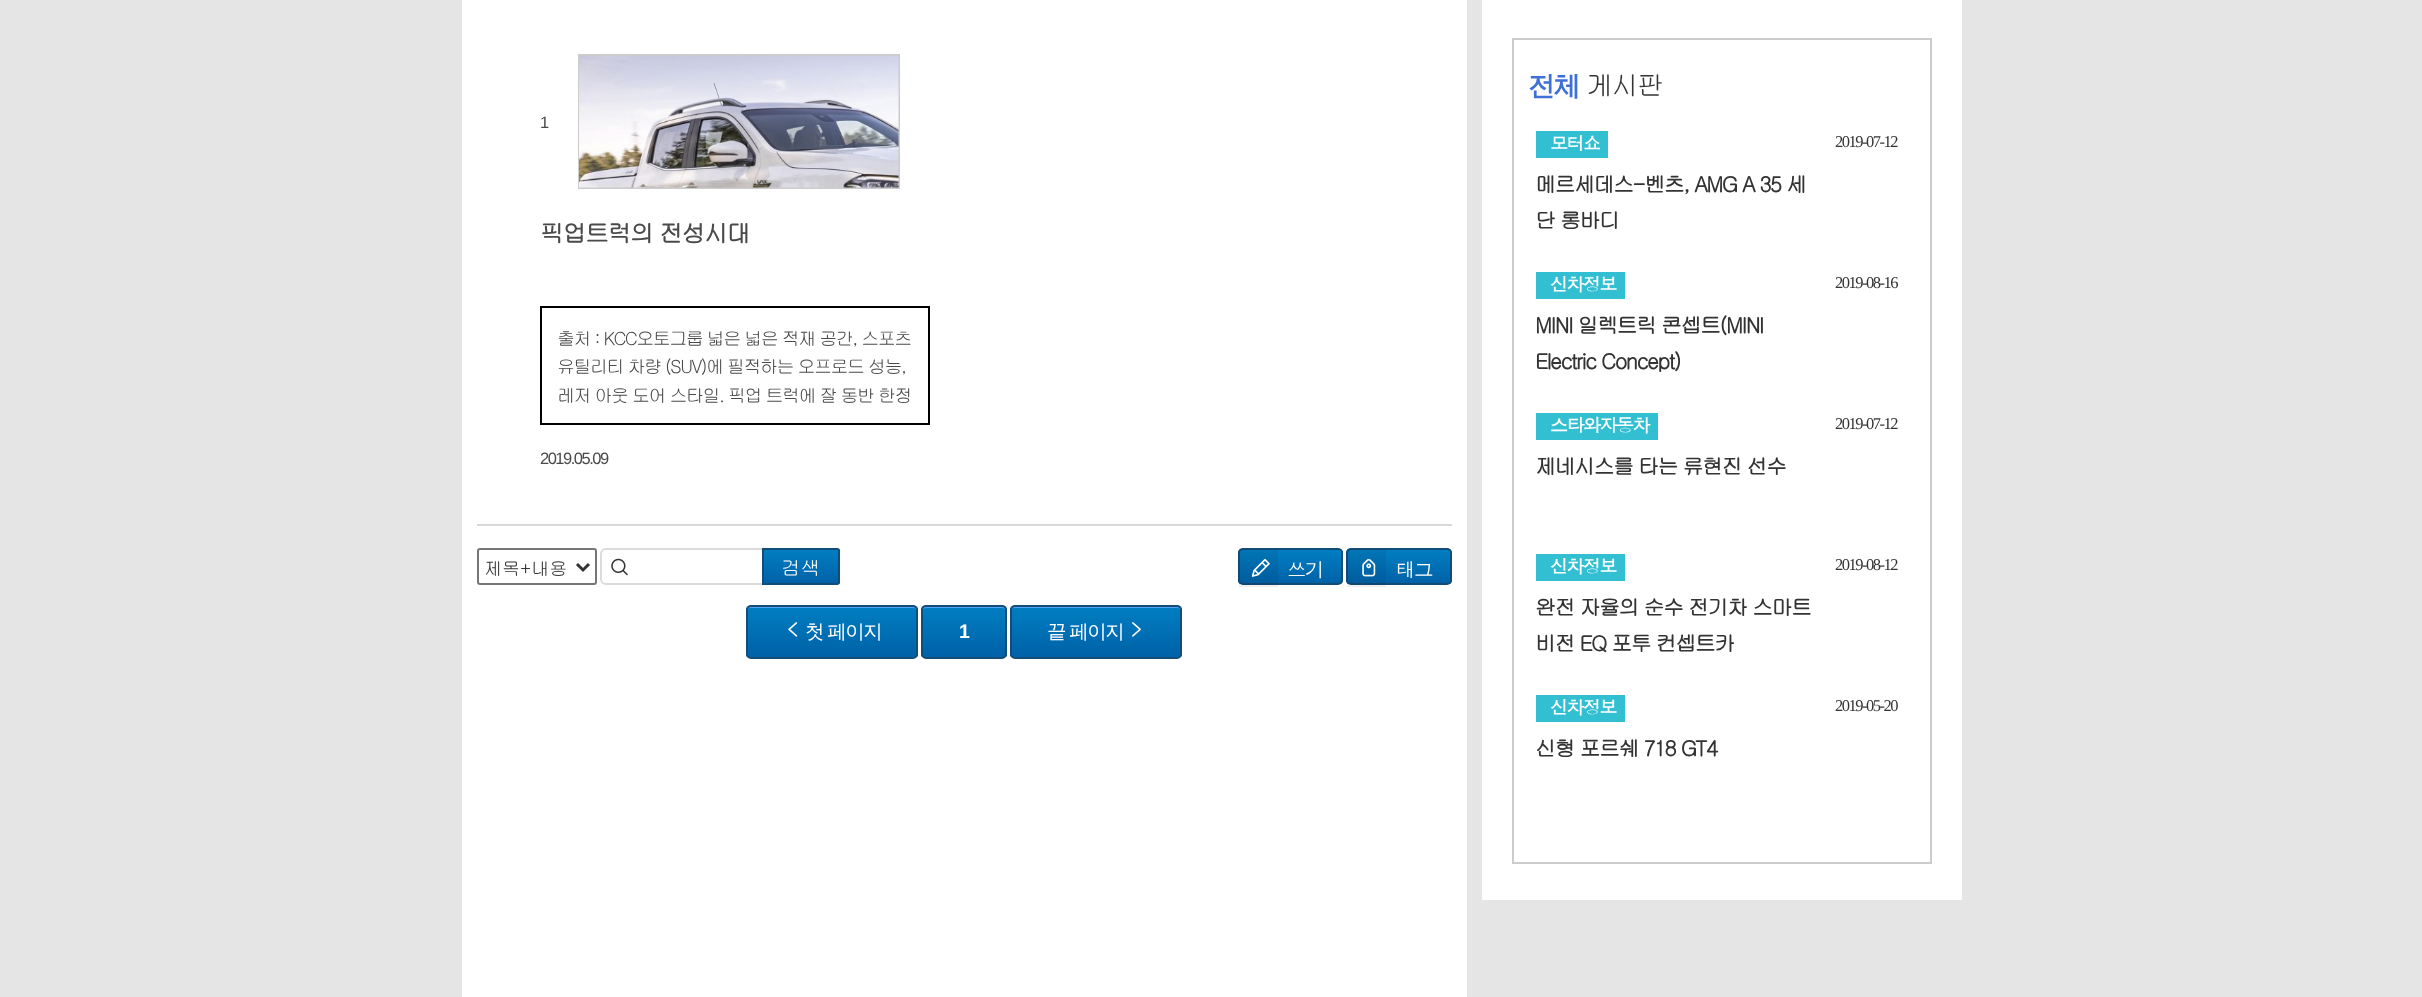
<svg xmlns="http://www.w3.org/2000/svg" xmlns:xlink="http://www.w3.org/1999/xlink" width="2422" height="997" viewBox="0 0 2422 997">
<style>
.cls-1{font:16.5px Liberation Sans;letter-spacing:-1.5px;fill:#4a4a4a}
.cls-2{font:bold 24px Gulim;letter-spacing:-1.5px;fill:#4a4a4a}
.cls-3{font:18px Gulim;letter-spacing:-1.5px;fill:#4a4a4a}
.cls-4{font:18px Gulim;fill:#333333}
.cls-5{font:19.5px Gulim;fill:#ffffff}
.cls-6{font:19.5px Dotum;letter-spacing:-1.5px;fill:#ffffff}
.cls-7{font:500 19.5px WenQuanYi Zen Hei;letter-spacing:-1.5px;fill:#ffffff}
.cls-8{font:bold 19.5px Liberation Sans;letter-spacing:-1.5px;fill:#ffffff}
.cls-9{font:bold 27px WenQuanYi Zen Hei;letter-spacing:-1.5px;fill:#3f70d8}
.cls-10{font:27px Gulim;letter-spacing:-1.5px;fill:#333333}
.cls-11{font:bold 18px Dotum;letter-spacing:-1.5px;fill:#ffffff}
.cls-12{font:bold 21px Gulim;letter-spacing:-1.5px;fill:#333333}
.cls-13{font:16.5px Liberation Serif;letter-spacing:-1.5px;fill:#333333}
</style>
<defs>
<clipPath id="clip1"><path d="M762 548H837C838.5 548 840 549.5 840 551V582C840 583.5 838.5 585 837 585H762Z"/></clipPath>
<linearGradient id="g1" gradientUnits="userSpaceOnUse" x1="801" y1="549" x2="801" y2="584"><stop offset="0.05" stop-color="#007dc1"/><stop offset="1" stop-color="#0061a7"/></linearGradient>
<clipPath id="clip2"><rect x="1238" y="548" width="105" height="37" rx="5"/></clipPath>
<linearGradient id="g2" gradientUnits="userSpaceOnUse" x1="1290" y1="549" x2="1290" y2="584"><stop offset="0.05" stop-color="#007dc1"/><stop offset="1" stop-color="#0061a7"/></linearGradient>
<clipPath id="clip3"><rect x="1346" y="548" width="106" height="37" rx="5"/></clipPath>
<linearGradient id="g3" gradientUnits="userSpaceOnUse" x1="1399" y1="549" x2="1399" y2="584"><stop offset="0.05" stop-color="#007dc1"/><stop offset="1" stop-color="#0061a7"/></linearGradient>
<clipPath id="clip4"><rect x="746" y="605" width="172" height="54" rx="5"/></clipPath>
<linearGradient id="g4" gradientUnits="userSpaceOnUse" x1="832" y1="606" x2="832" y2="657"><stop offset="0.05" stop-color="#007dc1"/><stop offset="1" stop-color="#0061a7"/></linearGradient>
<clipPath id="clip5"><rect x="921" y="605" width="86" height="54" rx="5"/></clipPath>
<linearGradient id="g5" gradientUnits="userSpaceOnUse" x1="964" y1="606" x2="964" y2="657"><stop offset="0.05" stop-color="#007dc1"/><stop offset="1" stop-color="#0061a7"/></linearGradient>
<clipPath id="clip6"><rect x="1010" y="605" width="172" height="54" rx="5"/></clipPath>
<linearGradient id="g6" gradientUnits="userSpaceOnUse" x1="1096" y1="606" x2="1096" y2="657"><stop offset="0.05" stop-color="#007dc1"/><stop offset="1" stop-color="#0061a7"/></linearGradient>
</defs>
<rect width="100%" height="100%" fill="#e5e5e5"/>
<rect fill="#ffffff" x="462" y="0" width="1005" height="997"/>
<rect fill="#d8d8d8" x="477" y="524" width="975" height="2"/>
<rect fill="none" stroke="#cccccc" stroke-width="2" x="579" y="55" width="320" height="133"/>
<image xlink:href="image0.png" x="579" y="55" width="320" height="133"/>
<rect fill="none" stroke="#000000" stroke-width="2" x="541" y="307" width="388" height="117"/>
<image xlink:href="image1.png" x="611" y="558" width="17" height="18"/>
<rect fill="none" stroke="#dbdbdb" stroke-width="2" x="601" y="549" width="238" height="35" rx="5"/>
<rect fill="none" stroke="#767676" stroke-width="2" x="478" y="549" width="118" height="35" rx="2"/>
<path fill="none" stroke="#333333" stroke-width="3" d="M577 564L583 570L589 564"/>
<g clip-path="url(#clip1)">
<rect fill="url(#g1)" x="764" y="549" width="76" height="35"/>
</g>
<path fill="none" stroke="#124d77" stroke-width="2" d="M763 549H837C838 549 839 550 839 551V582C839 583 838 584 837 584H763Z"/>
<g clip-path="url(#clip2)">
<rect fill="url(#g2)" x="1238" y="549" width="105" height="35"/>
</g>
<path fill="#54a3f7" d="M1242 550H1338C1340 550 1341 552 1341 554V552C1341 550 1340 549 1338 549H1242C1240 549 1239 550 1239 552V554C1239 552 1240 550 1242 550Z"/>
<rect fill="none" stroke="#124d77" stroke-width="2" x="1239" y="549" width="103" height="35" rx="4"/>
<rect fill="#000000" fill-opacity="0.06" x="1239" y="549" width="39" height="38"/>
<image xlink:href="image2.png" x="1251" y="558" width="19" height="19"/>
<g clip-path="url(#clip3)">
<rect fill="url(#g3)" x="1346" y="549" width="106" height="35"/>
</g>
<rect fill="none" stroke="#124d77" stroke-width="2" x="1347" y="549" width="104" height="35" rx="4"/>
<rect fill="#000000" fill-opacity="0.06" x="1347" y="549" width="39" height="38"/>
<image xlink:href="image3.png" x="1362" y="558" width="14" height="19"/>
<g clip-path="url(#clip4)">
<rect fill="url(#g4)" x="746" y="606" width="172" height="51"/>
</g>
<path fill="#54a3f7" d="M750 608H914C915 608 916 609 916 610V656C917 656 917 655 917 654V609C917 607 916 606 914 606H750C748 606 747 607 747 609V610C747 609 748 608 750 608Z"/>
<rect fill="none" stroke="#124d77" stroke-width="2" x="747" y="606" width="170" height="52" rx="4"/>
<image xlink:href="image4.png" x="788" y="622" width="10" height="15"/>
<g clip-path="url(#clip5)">
<rect fill="url(#g5)" x="921" y="606" width="86" height="51"/>
</g>
<path fill="#54a3f7" d="M926 608H1002C1004 608 1005 609 1005 610V609C1005 607 1004 606 1002 606H926C924 606 923 607 923 609Z"/>
<rect fill="none" stroke="#124d77" stroke-width="2" x="922" y="606" width="84" height="52" rx="4"/>
<g clip-path="url(#clip6)">
<rect fill="url(#g6)" x="1010" y="606" width="172" height="51"/>
</g>
<path fill="#54a3f7" d="M1014 608H1178C1179 608 1180 609 1180 610V656C1181 656 1181 655 1181 654V609C1181 607 1180 606 1178 606H1014C1012 606 1011 607 1011 609V610C1011 609 1012 608 1014 608Z"/>
<rect fill="none" stroke="#124d77" stroke-width="2" x="1011" y="606" width="170" height="52" rx="4"/>
<image xlink:href="image5.png" x="1132" y="622" width="9" height="15"/>
<rect fill="#ffffff" x="1482" y="0" width="480" height="900"/>
<rect fill="none" stroke="#cccccc" stroke-width="2" x="1513" y="39" width="418" height="824"/>
<rect fill="#32bfd1" x="1536" y="131" width="72" height="27"/>
<rect fill="#32bfd1" x="1536" y="272" width="89" height="27"/>
<rect fill="#32bfd1" x="1536" y="413" width="122" height="27"/>
<rect fill="#32bfd1" x="1536" y="554" width="89" height="27"/>
<rect fill="#32bfd1" x="1536" y="695" width="89" height="27"/>
<text class="cls-1" x="540" y="128">1</text>
<text class="cls-2" x="540" y="242">픽업트럭의 전성시대</text>
<text class="cls-3"><tspan x="557" y="345">출처 : KCC오토그룹 넓은 넓은 적재 공간, 스포츠</tspan><tspan x="557" y="373">유틸리티 차량 (SUV)에 필적하는 오프로드 성능,</tspan><tspan x="557" y="402">레저 아웃 도어 스타일. 픽업 트럭에 잘 동반 한정</tspan></text>
<text class="cls-1" x="540" y="464">2019.05.09</text>
<text class="cls-4" x="484" y="575">제목+내용</text>
<text class="cls-5" x="781" y="575">검색</text>
<text class="cls-6" x="1287" y="577">쓰기</text>
<text class="cls-6" x="1396" y="577">태그</text>
<text class="cls-7" x="805" y="638">첫 페이지</text>
<text class="cls-8" x="959" y="638">1</text>
<text class="cls-7" x="1047" y="638">끝 페이지</text>
<text class="cls-9" x="1528" y="95">전체</text>
<text class="cls-10" x="1586" y="95">게시판</text>
<text class="cls-11" x="1550" y="150">모터쇼</text>
<text class="cls-12"><tspan x="1535" y="192">메르세데스-벤츠, AMG A 35 세</tspan><tspan x="1535" y="228">단 롱바디</tspan></text>
<text class="cls-13" x="1835" y="147">2019-07-12</text>
<text class="cls-11" x="1550" y="291">신차정보</text>
<text class="cls-12"><tspan x="1535" y="333">MINI 일렉트릭 콘셉트(MINI</tspan><tspan x="1535" y="369">Electric Concept)</tspan></text>
<text class="cls-13" x="1835" y="288">2019-08-16</text>
<text class="cls-11" x="1550" y="432">스타와자동차</text>
<text class="cls-12" x="1535" y="474">제네시스를 타는 류현진 선수</text>
<text class="cls-13" x="1835" y="429">2019-07-12</text>
<text class="cls-11" x="1550" y="573">신차정보</text>
<text class="cls-12"><tspan x="1535" y="615">완전 자율의 순수 전기차 스마트</tspan><tspan x="1535" y="651">비전 EQ 포투 컨셉트카</tspan></text>
<text class="cls-13" x="1835" y="570">2019-08-12</text>
<text class="cls-11" x="1550" y="714">신차정보</text>
<text class="cls-12" x="1535" y="756">신형 포르쉐 718 GT4</text>
<text class="cls-13" x="1835" y="711">2019-05-20</text>
</svg>
